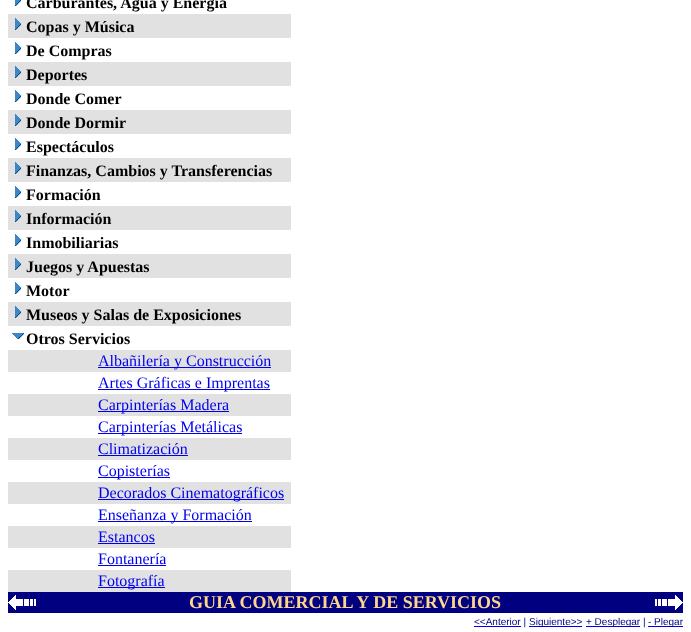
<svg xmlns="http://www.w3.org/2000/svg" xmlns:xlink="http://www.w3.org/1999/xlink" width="691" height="632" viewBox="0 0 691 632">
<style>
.cls-1{font:bold 16px Liberation Serif;fill:#000000}
.cls-2{font:16px Liberation Serif;fill:#0000ee}
.cls-3{font:bold 18px Liberation Serif;fill:#ffd68c}
.cls-4{font:10px Liberation Sans;fill:#000080}
</style>
<rect width="100%" height="100%" fill="#ffffff"/>
<image xlink:href="image0.png" x="15" y="0" width="6" height="6"/>
<rect fill="#e1e1e1" x="8" y="14" width="283" height="24"/>
<image xlink:href="image1.png" x="15" y="18" width="6" height="12"/>
<image xlink:href="image2.png" x="15" y="42" width="6" height="12"/>
<rect fill="#e1e1e1" x="8" y="62" width="283" height="24"/>
<image xlink:href="image1.png" x="15" y="66" width="6" height="12"/>
<image xlink:href="image2.png" x="15" y="90" width="6" height="12"/>
<rect fill="#e1e1e1" x="8" y="110" width="283" height="24"/>
<image xlink:href="image1.png" x="15" y="114" width="6" height="12"/>
<image xlink:href="image2.png" x="15" y="138" width="6" height="12"/>
<rect fill="#e1e1e1" x="8" y="158" width="283" height="24"/>
<image xlink:href="image1.png" x="15" y="162" width="6" height="12"/>
<image xlink:href="image2.png" x="15" y="186" width="6" height="12"/>
<rect fill="#e1e1e1" x="8" y="206" width="283" height="24"/>
<image xlink:href="image1.png" x="15" y="210" width="6" height="12"/>
<image xlink:href="image2.png" x="15" y="234" width="6" height="12"/>
<rect fill="#e1e1e1" x="8" y="254" width="283" height="24"/>
<image xlink:href="image1.png" x="15" y="258" width="6" height="12"/>
<image xlink:href="image2.png" x="15" y="282" width="6" height="12"/>
<rect fill="#e1e1e1" x="8" y="302" width="283" height="24"/>
<image xlink:href="image1.png" x="15" y="306" width="6" height="12"/>
<image xlink:href="image3.png" x="12" y="333" width="12" height="6"/>
<rect fill="#e1e1e1" x="8" y="350" width="283" height="22"/>
<rect fill="#0000ee" x="98" y="367" width="173" height="1"/>
<rect fill="#0000ee" x="98" y="389" width="172" height="1"/>
<rect fill="#e1e1e1" x="8" y="394" width="283" height="22"/>
<rect fill="#0000ee" x="98" y="411" width="131" height="1"/>
<rect fill="#0000ee" x="98" y="433" width="144" height="1"/>
<rect fill="#e1e1e1" x="8" y="438" width="283" height="22"/>
<rect fill="#0000ee" x="98" y="455" width="90" height="1"/>
<rect fill="#0000ee" x="98" y="477" width="72" height="1"/>
<rect fill="#e1e1e1" x="8" y="482" width="283" height="22"/>
<rect fill="#0000ee" x="98" y="499" width="186" height="1"/>
<rect fill="#0000ee" x="98" y="521" width="154" height="1"/>
<rect fill="#e1e1e1" x="8" y="526" width="283" height="22"/>
<rect fill="#0000ee" x="98" y="543" width="57" height="1"/>
<rect fill="#0000ee" x="98" y="565" width="68" height="1"/>
<rect fill="#e1e1e1" x="8" y="570" width="283" height="22"/>
<rect fill="#0000ee" x="98" y="587" width="67" height="1"/>
<rect fill="#000080" x="8" y="592" width="675" height="21"/>
<image xlink:href="image4.png" x="8" y="595" width="28" height="15"/>
<image xlink:href="image5.png" x="655" y="595" width="28" height="15"/>
<rect fill="#0000ee" x="474" y="626" width="47" height="1"/>
<rect fill="#0000ee" x="529" y="626" width="53" height="1"/>
<rect fill="#0000ee" x="586" y="626" width="54" height="1"/>
<rect fill="#0000ee" x="648" y="626" width="35" height="1"/>
<text class="cls-1"><tspan x="26" y="8">Carburantes, Agua y Energía</tspan><tspan x="26" y="32">Copas y Música</tspan><tspan x="26" y="56">De Compras</tspan><tspan x="26" y="80">Deportes</tspan><tspan x="26" y="104">Donde Comer</tspan><tspan x="26" y="128">Donde Dormir</tspan><tspan x="26" y="152">Espectáculos</tspan><tspan x="26" y="176">Finanzas, Cambios y Transferencias</tspan><tspan x="26" y="200">Formación</tspan><tspan x="26" y="224">Información</tspan><tspan x="26" y="248">Inmobiliarias</tspan><tspan x="26" y="272">Juegos y Apuestas</tspan><tspan x="26" y="296">Motor</tspan><tspan x="26" y="320">Museos y Salas de Exposiciones</tspan><tspan x="26" y="344">Otros Servicios</tspan></text>
<text class="cls-2"><tspan x="98" y="366">Albañilería y Construcción</tspan><tspan x="98" y="388">Artes Gráficas e Imprentas</tspan><tspan x="98" y="410">Carpinterías Madera</tspan><tspan x="98" y="432">Carpinterías Metálicas</tspan><tspan x="98" y="454">Climatización</tspan><tspan x="98" y="476">Copisterías</tspan><tspan x="98" y="498">Decorados Cinematográficos</tspan><tspan x="98" y="520">Enseñanza y Formación</tspan><tspan x="98" y="542">Estancos</tspan><tspan x="98" y="564">Fontanería</tspan><tspan x="98" y="586">Fotografía</tspan></text>
<text class="cls-3" x="189" y="608">GUIA COMERCIAL Y DE SERVICIOS</text>
<text class="cls-4" x="474" y="625">&lt;&lt;Anterior |</text>
<text class="cls-4" x="529" y="625">Siguiente&gt;&gt;</text>
<text class="cls-4" x="586" y="625">+ Desplegar |</text>
<text class="cls-4" x="648" y="625">- Plegar</text>
</svg>
